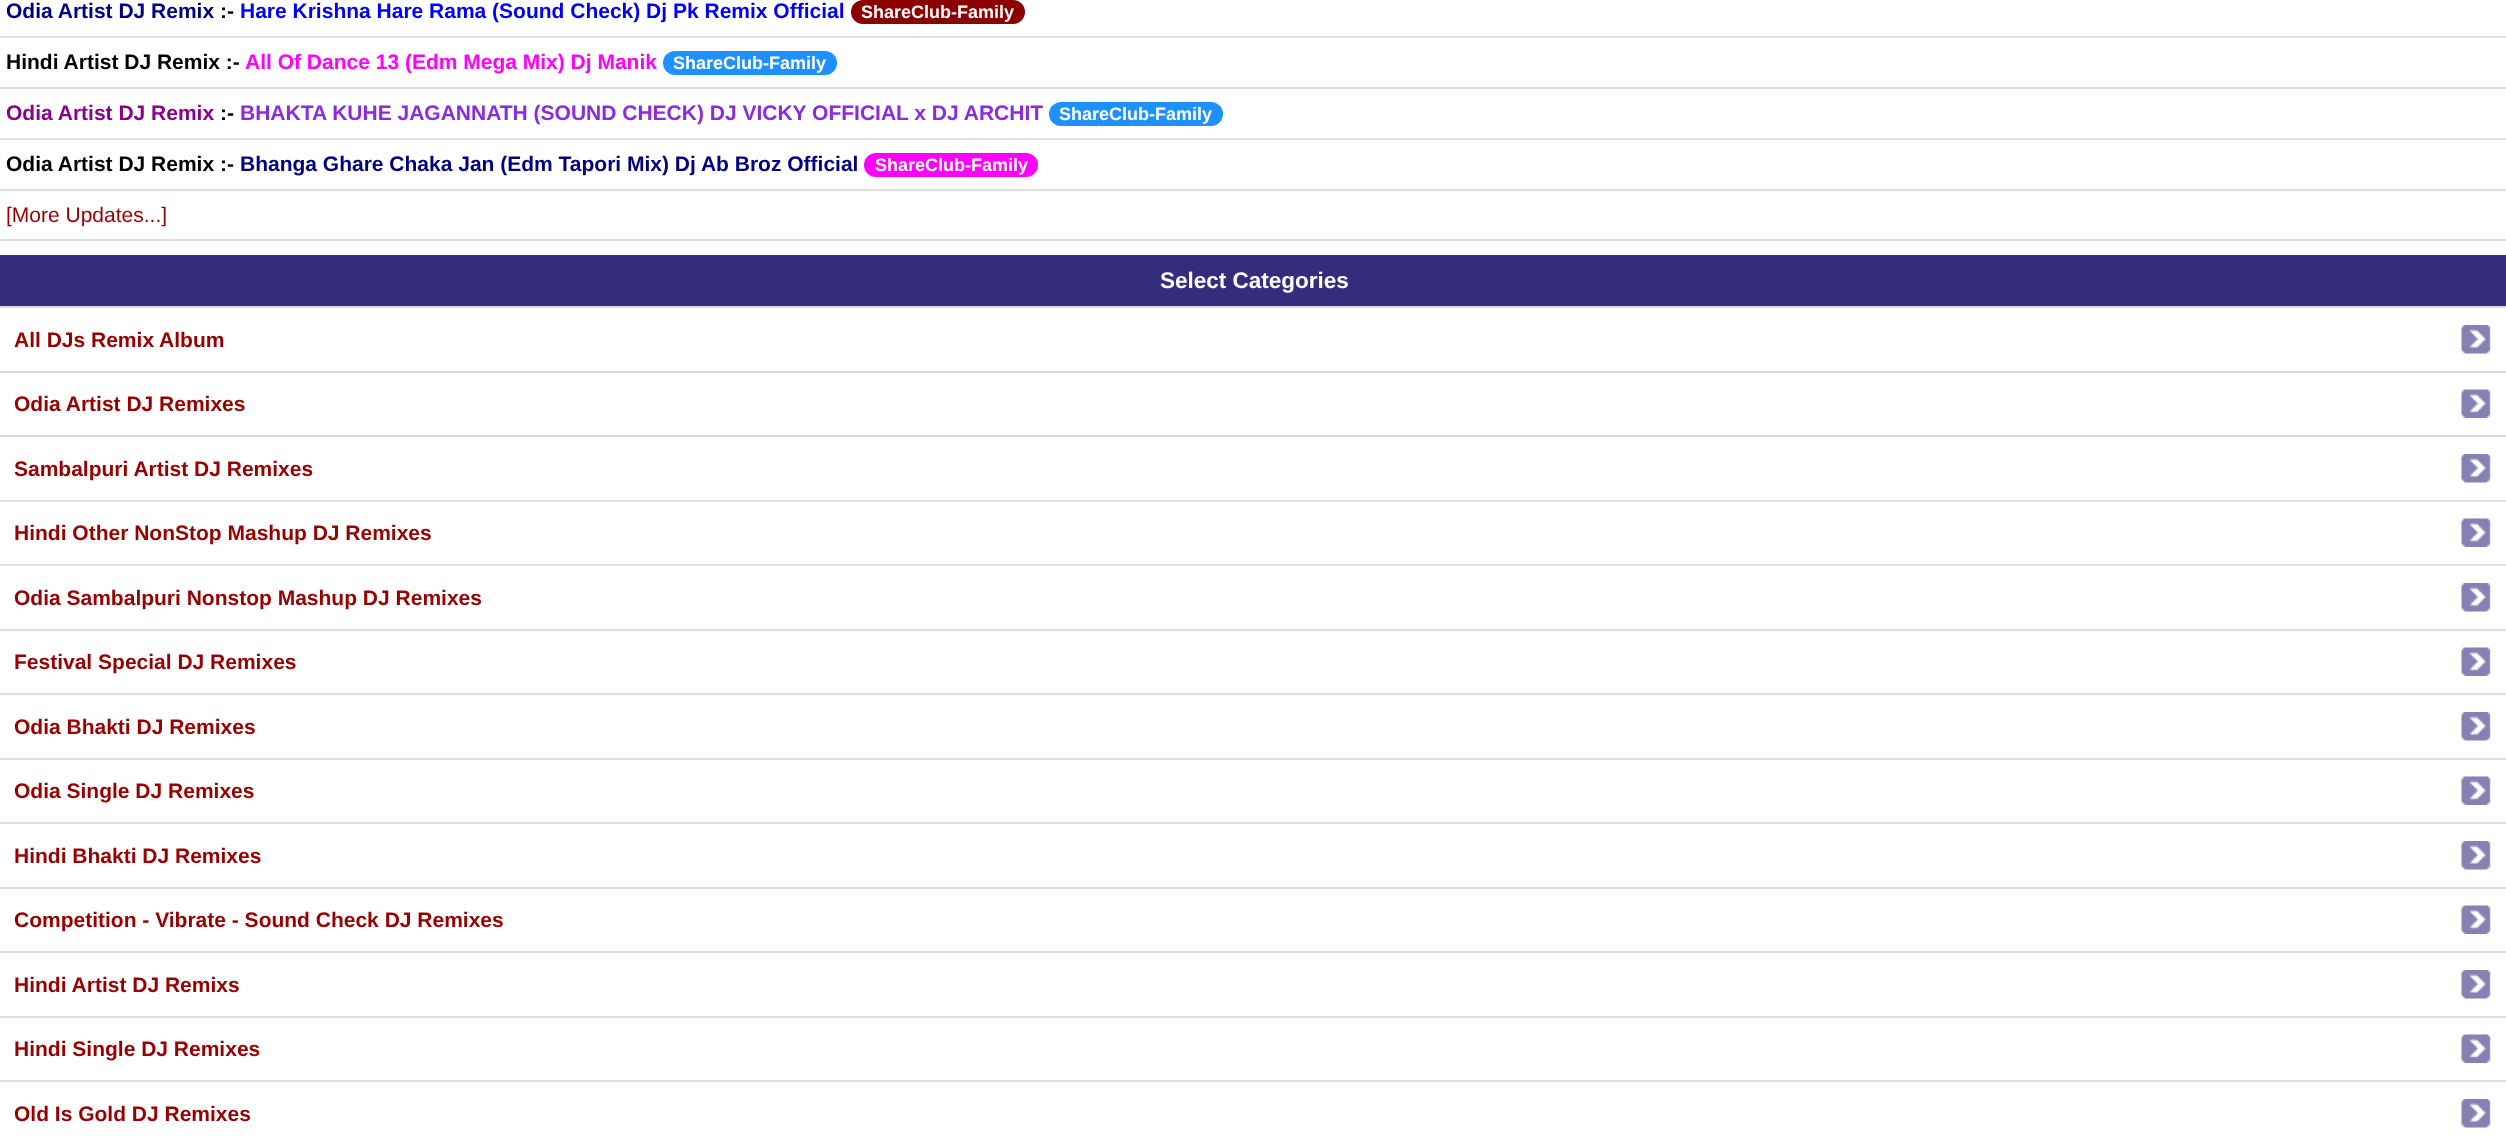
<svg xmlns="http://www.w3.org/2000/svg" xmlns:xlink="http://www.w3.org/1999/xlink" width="2506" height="1140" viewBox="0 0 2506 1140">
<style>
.cls-1{font:bold 21px Liberation Sans;fill:#000080}
.cls-2{font:bold 21px Liberation Sans;fill:#000000}
.cls-3{font:bold 21px Liberation Sans;fill:#0000ff}
.cls-4{font:bold 18px Liberation Sans;fill:#ffffff}
.cls-5{font:bold 21px Liberation Sans;fill:#ff00ff}
.cls-6{font:bold 21px Liberation Sans;fill:#8b008b}
.cls-7{font:bold 21px Liberation Sans;fill:#8a2be2}
.cls-8{font:21px Liberation Sans;fill:#990000}
.cls-9{font:bold 22.5px Liberation Sans;fill:#ffffff}
.cls-10{font:bold 21px Liberation Sans;fill:#990000}
</style>
<rect width="100%" height="100%" fill="#ffffff"/>
<rect fill="#dddddd" x="0" y="36" width="2506" height="2"/>
<rect fill="#8b0000" x="851" y="0" width="174" height="24" rx="12"/>
<rect fill="#dddddd" x="0" y="87" width="2506" height="2"/>
<rect fill="#1e90ff" x="663" y="51" width="174" height="24" rx="12"/>
<rect fill="#dddddd" x="0" y="138" width="2506" height="2"/>
<rect fill="#1e90ff" x="1049" y="102" width="174" height="24" rx="12"/>
<rect fill="#dddddd" x="0" y="189" width="2506" height="2"/>
<rect fill="#ff00ff" x="864" y="153" width="174" height="24" rx="12"/>
<rect fill="#dddddd" x="0" y="239" width="2506" height="2"/>
<rect fill="#342d7e" x="0" y="255" width="2506" height="51"/>
<rect fill="#dddddd" x="0" y="306" width="2506" height="2"/>
<image xlink:href="image0.png" x="2461" y="325" width="30" height="29"/>
<rect fill="#dddddd" x="0" y="371" width="2506" height="2"/>
<image xlink:href="image1.png" x="2461" y="389" width="30" height="29"/>
<rect fill="#dddddd" x="0" y="435" width="2506" height="2"/>
<image xlink:href="image0.png" x="2461" y="454" width="30" height="29"/>
<rect fill="#dddddd" x="0" y="500" width="2506" height="2"/>
<image xlink:href="image1.png" x="2461" y="518" width="30" height="29"/>
<rect fill="#dddddd" x="0" y="564" width="2506" height="2"/>
<image xlink:href="image0.png" x="2461" y="583" width="30" height="29"/>
<rect fill="#dddddd" x="0" y="629" width="2506" height="2"/>
<image xlink:href="image1.png" x="2461" y="647" width="30" height="29"/>
<rect fill="#dddddd" x="0" y="693" width="2506" height="2"/>
<image xlink:href="image0.png" x="2461" y="712" width="30" height="29"/>
<rect fill="#dddddd" x="0" y="758" width="2506" height="2"/>
<image xlink:href="image1.png" x="2461" y="776" width="30" height="29"/>
<rect fill="#dddddd" x="0" y="822" width="2506" height="2"/>
<image xlink:href="image0.png" x="2461" y="841" width="30" height="29"/>
<rect fill="#dddddd" x="0" y="887" width="2506" height="2"/>
<image xlink:href="image1.png" x="2461" y="905" width="30" height="29"/>
<rect fill="#dddddd" x="0" y="951" width="2506" height="2"/>
<image xlink:href="image0.png" x="2461" y="970" width="30" height="29"/>
<rect fill="#dddddd" x="0" y="1016" width="2506" height="2"/>
<image xlink:href="image1.png" x="2461" y="1034" width="30" height="29"/>
<rect fill="#dddddd" x="0" y="1080" width="2506" height="2"/>
<image xlink:href="image0.png" x="2461" y="1099" width="30" height="29"/>
<text class="cls-1" x="6" y="18">Odia Artist DJ Remix</text>
<text class="cls-2" x="220" y="18">:-</text>
<text class="cls-3" x="240" y="18">Hare Krishna Hare Rama (Sound Check) Dj Pk Remix Official</text>
<text class="cls-4" x="861" y="18">ShareClub-Family</text>
<text class="cls-2" x="6" y="69">Hindi Artist DJ Remix :-</text>
<text class="cls-5" x="245" y="69">All Of Dance 13 (Edm Mega Mix) Dj Manik</text>
<text class="cls-4" x="673" y="69">ShareClub-Family</text>
<text class="cls-6" x="6" y="120">Odia Artist DJ Remix</text>
<text class="cls-2" x="220" y="120">:-</text>
<text class="cls-7" x="240" y="120">BHAKTA KUHE JAGANNATH (SOUND CHECK) DJ VICKY OFFICIAL x DJ ARCHIT</text>
<text class="cls-4" x="1059" y="120">ShareClub-Family</text>
<text class="cls-2" x="6" y="171">Odia Artist DJ Remix :-</text>
<text class="cls-1" x="240" y="171">Bhanga Ghare Chaka Jan (Edm Tapori Mix) Dj Ab Broz Official</text>
<text class="cls-4" x="875" y="171">ShareClub-Family</text>
<text class="cls-8" x="6" y="222">[More Updates...]</text>
<text class="cls-9" x="1160" y="288">Select Categories</text>
<text class="cls-10" x="14" y="347">All DJs Remix Album</text>
<text class="cls-10" x="14" y="411">Odia Artist DJ Remixes</text>
<text class="cls-10" x="14" y="476">Sambalpuri Artist DJ Remixes</text>
<text class="cls-10" x="14" y="540">Hindi Other NonStop Mashup DJ Remixes</text>
<text class="cls-10" x="14" y="605">Odia Sambalpuri Nonstop Mashup DJ Remixes</text>
<text class="cls-10" x="14" y="669">Festival Special DJ Remixes</text>
<text class="cls-10" x="14" y="734">Odia Bhakti DJ Remixes</text>
<text class="cls-10" x="14" y="798">Odia Single DJ Remixes</text>
<text class="cls-10" x="14" y="863">Hindi Bhakti DJ Remixes</text>
<text class="cls-10" x="14" y="927">Competition - Vibrate - Sound Check DJ Remixes</text>
<text class="cls-10" x="14" y="992">Hindi Artist DJ Remixs</text>
<text class="cls-10" x="14" y="1056">Hindi Single DJ Remixes</text>
<text class="cls-10" x="14" y="1121">Old Is Gold DJ Remixes</text>
</svg>
